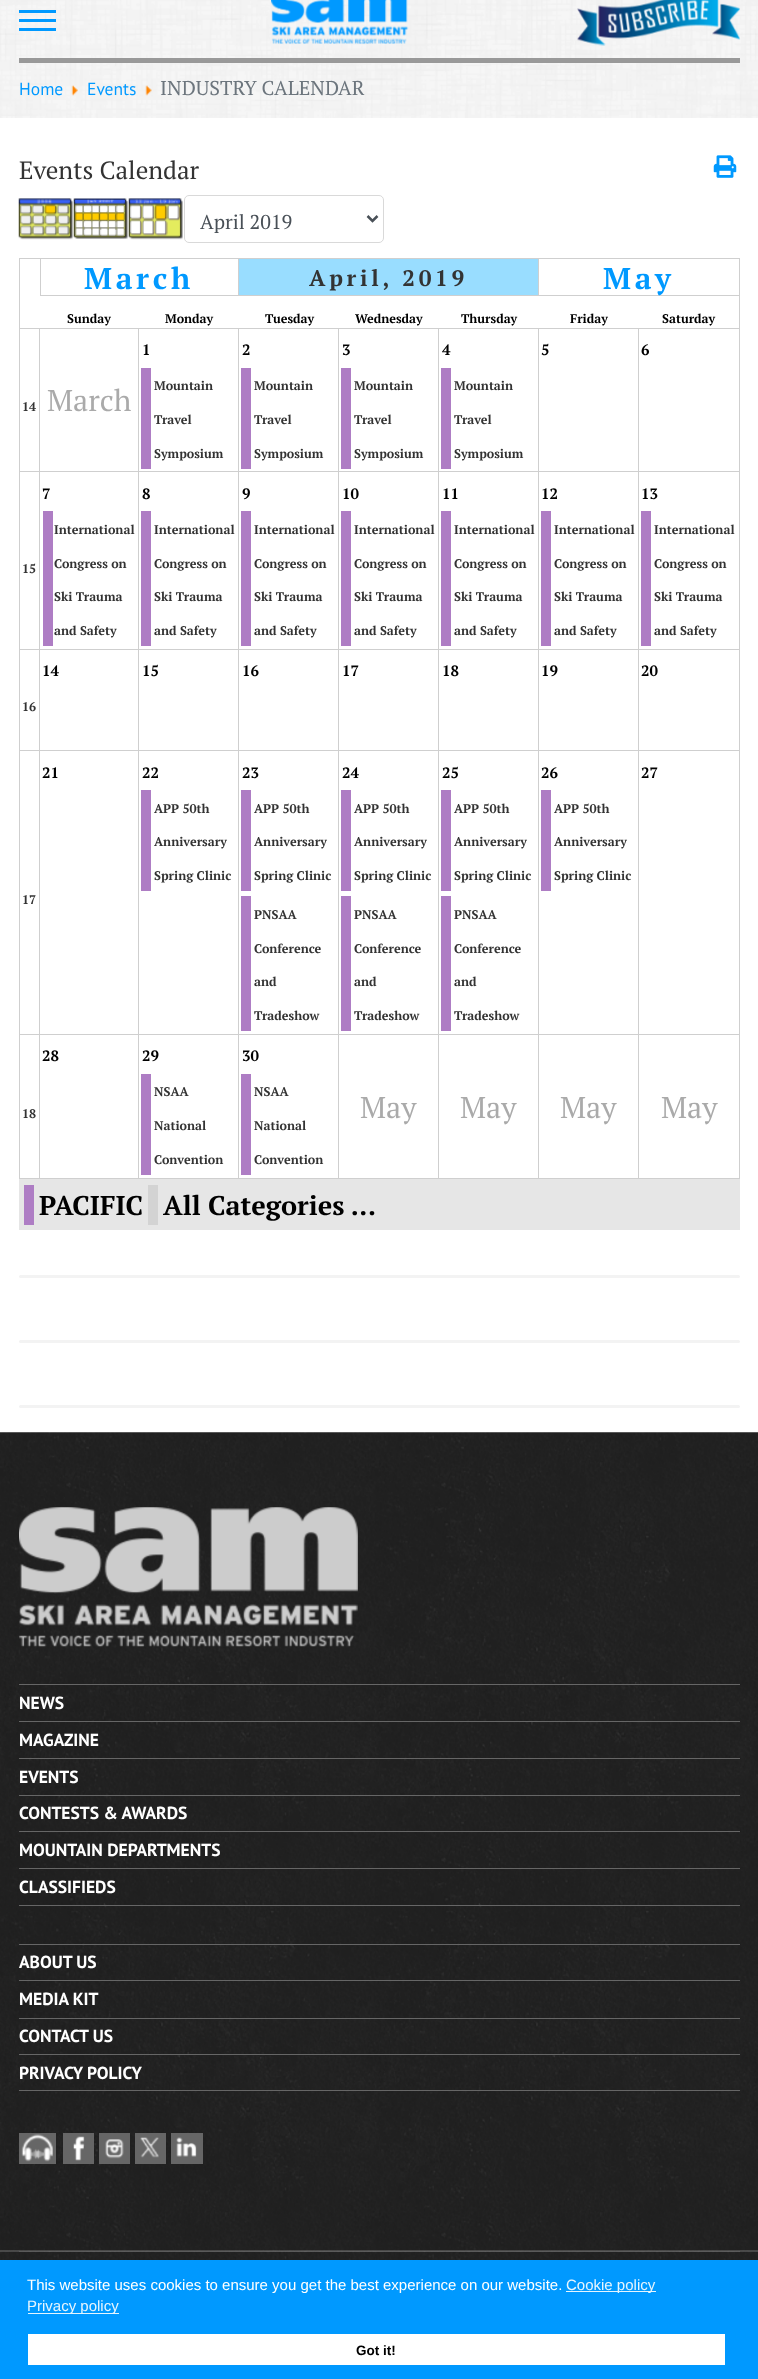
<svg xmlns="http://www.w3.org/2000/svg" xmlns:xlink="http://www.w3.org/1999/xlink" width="758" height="2379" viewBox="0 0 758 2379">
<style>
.cls-1{font:17.5px PT Sans;fill:#0099ff}
.cls-2{font:20px PT Serif;fill:#6c757d}
.cls-3{font:25px PT Serif;fill:#333333}
.cls-4{font:20px PT Serif;fill:#495057}
.cls-5{font:bold 30px PT Serif;letter-spacing:3.75px;fill:#0099ff}
.cls-6{font:bold 22.5px PT Serif;letter-spacing:3.75px;fill:#333333}
.cls-7{font:bold 12.5px PT Serif;fill:#000000}
.cls-8{font:bold 15px PT Serif;fill:#000000}
.cls-9{font:bold 12.5px PT Serif;fill:#333333}
.cls-10{font:30px PT Serif;fill:#aaaaaa}
.cls-11{font:bold 27px PT Serif;fill:#000000}
.cls-12{font:bold 17.5px PT Sans;fill:#ffffff}
.cls-13{font:15px Liberation Sans;fill:#ffffff}
.cls-14{font:15px Liberation Sans;fill:#e6f5ff}
.cls-15{font:bold 13.5px Liberation Sans;fill:#000000}
</style>
<rect width="100%" height="100%" fill="#ffffff"/>
<image xlink:href="image0.png" x="0" y="0" width="758" height="2252"/>
<rect fill="#999999" x="19" y="58" width="721" height="5"/>
<rect fill="#0099ff" x="19" y="10" width="37" height="3"/>
<rect fill="#0099ff" x="19" y="19" width="37" height="3"/>
<rect fill="#0099ff" x="19" y="28" width="37" height="3"/>
<image xlink:href="image1.png" x="271" y="0" width="138" height="44"/>
<image xlink:href="image2.png" x="577" y="0" width="163" height="46"/>
<image xlink:href="image3.png" x="71" y="85" width="7" height="11"/>
<image xlink:href="image4.png" x="145" y="85" width="7" height="11"/>
<rect fill="#ffffff" x="0" y="118" width="758" height="1315"/>
<image xlink:href="image5.png" x="713" y="155" width="24" height="23"/>
<image xlink:href="image6.png" x="18" y="198" width="55" height="42"/>
<image xlink:href="image7.png" x="73" y="198" width="55" height="41"/>
<image xlink:href="image8.png" x="128" y="198" width="55" height="42"/>
<rect fill="none" stroke="#d9d9d9" x="184.5" y="195.5" width="199" height="47" rx="4.5"/>
<path fill="none" stroke="#495057" stroke-width="2.5" d="M367.5 216L372.5 221L377.5 216"/>
<rect fill="none" stroke="#cfcfcf" x="19.5" y="258.5" width="720" height="920"/>
<rect fill="#cfcfcf" x="238" y="259" width="1" height="37"/>
<rect fill="#cfcfcf" x="40" y="295" width="199" height="1"/>
<rect fill="#cfcfcf" x="40" y="259" width="1" height="37"/>
<rect fill="#99ddff" x="239" y="259" width="299" height="36"/>
<rect fill="#cfcfcf" x="538" y="259" width="1" height="37"/>
<rect fill="#cfcfcf" x="239" y="295" width="500" height="1"/>
<rect fill="#cfcfcf" x="20" y="328" width="719" height="1"/>
<rect fill="#cfcfcf" x="238" y="328" width="1" height="143"/>
<rect fill="#ae7dc4" x="141" y="368" width="10" height="101"/>
<rect fill="#cfcfcf" x="338" y="328" width="1" height="143"/>
<rect fill="#ae7dc4" x="241" y="368" width="10" height="101"/>
<rect fill="#cfcfcf" x="438" y="328" width="1" height="143"/>
<rect fill="#ae7dc4" x="341" y="368" width="10" height="101"/>
<rect fill="#cfcfcf" x="538" y="328" width="1" height="143"/>
<rect fill="#ae7dc4" x="441" y="368" width="10" height="101"/>
<rect fill="#cfcfcf" x="638" y="328" width="1" height="143"/>
<rect fill="#cfcfcf" x="39" y="328" width="1" height="143"/>
<rect fill="#cfcfcf" x="138" y="328" width="1" height="143"/>
<rect fill="#cfcfcf" x="20" y="471" width="719" height="1"/>
<rect fill="#cfcfcf" x="39" y="471" width="1" height="178"/>
<rect fill="#cfcfcf" x="138" y="471" width="1" height="178"/>
<rect fill="#ae7dc4" x="43" y="511" width="10" height="135"/>
<rect fill="#cfcfcf" x="238" y="471" width="1" height="178"/>
<rect fill="#ae7dc4" x="141" y="511" width="10" height="135"/>
<rect fill="#cfcfcf" x="338" y="471" width="1" height="178"/>
<rect fill="#ae7dc4" x="241" y="511" width="10" height="135"/>
<rect fill="#cfcfcf" x="438" y="471" width="1" height="178"/>
<rect fill="#ae7dc4" x="341" y="511" width="10" height="135"/>
<rect fill="#cfcfcf" x="538" y="471" width="1" height="178"/>
<rect fill="#ae7dc4" x="441" y="511" width="10" height="135"/>
<rect fill="#cfcfcf" x="638" y="471" width="1" height="178"/>
<rect fill="#ae7dc4" x="541" y="511" width="10" height="135"/>
<rect fill="#ae7dc4" x="641" y="511" width="10" height="135"/>
<rect fill="#cfcfcf" x="20" y="649" width="719" height="1"/>
<rect fill="#cfcfcf" x="138" y="649" width="1" height="101"/>
<rect fill="#cfcfcf" x="238" y="649" width="1" height="101"/>
<rect fill="#cfcfcf" x="338" y="649" width="1" height="101"/>
<rect fill="#cfcfcf" x="438" y="649" width="1" height="101"/>
<rect fill="#cfcfcf" x="538" y="649" width="1" height="101"/>
<rect fill="#cfcfcf" x="638" y="649" width="1" height="101"/>
<rect fill="#cfcfcf" x="39" y="649" width="1" height="101"/>
<rect fill="#cfcfcf" x="20" y="750" width="719" height="1"/>
<rect fill="#cfcfcf" x="138" y="750" width="1" height="284"/>
<rect fill="#cfcfcf" x="238" y="750" width="1" height="284"/>
<rect fill="#ae7dc4" x="141" y="790" width="10" height="101"/>
<rect fill="#cfcfcf" x="338" y="750" width="1" height="284"/>
<rect fill="#ae7dc4" x="241" y="790" width="10" height="101"/>
<rect fill="#ae7dc4" x="241" y="896" width="10" height="135"/>
<rect fill="#cfcfcf" x="438" y="750" width="1" height="284"/>
<rect fill="#ae7dc4" x="341" y="790" width="10" height="101"/>
<rect fill="#ae7dc4" x="341" y="896" width="10" height="135"/>
<rect fill="#cfcfcf" x="538" y="750" width="1" height="284"/>
<rect fill="#ae7dc4" x="441" y="790" width="10" height="101"/>
<rect fill="#ae7dc4" x="441" y="896" width="10" height="135"/>
<rect fill="#cfcfcf" x="638" y="750" width="1" height="284"/>
<rect fill="#ae7dc4" x="541" y="790" width="10" height="101"/>
<rect fill="#cfcfcf" x="39" y="750" width="1" height="284"/>
<rect fill="#cfcfcf" x="20" y="1034" width="719" height="1"/>
<rect fill="#cfcfcf" x="39" y="1034" width="1" height="144"/>
<rect fill="#cfcfcf" x="138" y="1034" width="1" height="144"/>
<rect fill="#cfcfcf" x="238" y="1034" width="1" height="144"/>
<rect fill="#ae7dc4" x="141" y="1074" width="10" height="101"/>
<rect fill="#cfcfcf" x="338" y="1034" width="1" height="144"/>
<rect fill="#ae7dc4" x="241" y="1074" width="10" height="101"/>
<rect fill="#cfcfcf" x="438" y="1034" width="1" height="144"/>
<rect fill="#cfcfcf" x="538" y="1034" width="1" height="144"/>
<rect fill="#cfcfcf" x="638" y="1034" width="1" height="144"/>
<rect fill="#e6e6e6" x="19" y="1179" width="721" height="51"/>
<rect fill="#ae7dc4" x="24" y="1185" width="10" height="40"/>
<rect fill="#d3d3d3" x="148" y="1185" width="10" height="40"/>
<rect fill="#f3f3f3" x="19" y="1275" width="721" height="3" rx="1.5"/>
<rect fill="#f3f3f3" x="19" y="1340" width="721" height="3" rx="1.5"/>
<rect fill="#f3f3f3" x="19" y="1405" width="721" height="3" rx="1.5"/>
<image xlink:href="image9.png" x="0" y="1432" width="758" height="819"/>
<image xlink:href="image10.png" x="19" y="1507" width="339" height="140"/>
<rect fill="#666666" x="19" y="1684" width="721" height="1"/>
<rect fill="#666666" x="19" y="1721" width="721" height="1"/>
<rect fill="#666666" x="19" y="1758" width="721" height="1"/>
<rect fill="#666666" x="19" y="1795" width="721" height="1"/>
<rect fill="#666666" x="19" y="1831" width="721" height="1"/>
<rect fill="#666666" x="19" y="1868" width="721" height="1"/>
<rect fill="#666666" x="19" y="1905" width="721" height="1"/>
<rect fill="#666666" x="19" y="1944" width="721" height="1"/>
<rect fill="#666666" x="19" y="1980" width="721" height="1"/>
<rect fill="#666666" x="19" y="2018" width="721" height="1"/>
<rect fill="#666666" x="19" y="2054" width="721" height="1"/>
<rect fill="#666666" x="19" y="2090" width="721" height="1"/>
<rect fill="#666666" x="19" y="2133" width="37" height="31"/>
<image xlink:href="image11.png" x="21" y="2134" width="32" height="28"/>
<rect fill="#666666" x="63" y="2133" width="31" height="31"/>
<image xlink:href="image12.png" x="73" y="2136" width="12" height="25"/>
<rect fill="#666666" x="99" y="2133" width="31" height="31"/>
<image xlink:href="image13.png" x="105" y="2139" width="19" height="20"/>
<rect fill="#666666" x="135" y="2133" width="31" height="31"/>
<image xlink:href="image14.png" x="140" y="2137" width="19" height="21"/>
<rect fill="#666666" x="171" y="2133" width="32" height="31"/>
<image xlink:href="image15.png" x="176" y="2137" width="21" height="20"/>
<image xlink:href="image16.png" x="0" y="2251" width="758" height="9"/>
<rect fill="#ffffff" fill-opacity="0.1" x="19" y="2251" width="721" height="1"/>
<rect fill="#0099ff" x="0" y="2260" width="758" height="119"/>
<rect fill="#e6f5ff" x="566" y="2291" width="90" height="1"/>
<rect fill="#e6f5ff" x="28" y="2313" width="91" height="1"/>
<rect fill="#ffffff" x="28" y="2334" width="697" height="31"/>
<text class="cls-1" x="19" y="95">Home</text>
<text class="cls-1" x="87" y="95">Events</text>
<text class="cls-2" x="160" y="95">INDUSTRY CALENDAR</text>
<text class="cls-3" x="19" y="179">Events Calendar</text>
<text class="cls-4" x="200" y="229">April 2019</text>
<text class="cls-5" x="84" y="289">March</text>
<text class="cls-6" x="309" y="286">April, 2019</text>
<text class="cls-5" x="603" y="289">May</text>
<text class="cls-7" x="67" y="323">Sunday</text>
<text class="cls-7" x="165" y="323">Monday</text>
<text class="cls-7" x="265" y="323">Tuesday</text>
<text class="cls-7" x="355" y="323">Wednesday</text>
<text class="cls-7" x="461" y="323">Thursday</text>
<text class="cls-7" x="570" y="323">Friday</text>
<text class="cls-7" x="662" y="323">Saturday</text>
<text class="cls-8" x="142" y="355">1</text>
<text class="cls-9" x="154" y="390">Mountain</text>
<text class="cls-9" x="154" y="424">Travel</text>
<text class="cls-9" x="154" y="458">Symposium</text>
<text class="cls-8" x="242" y="355">2</text>
<text class="cls-9" x="254" y="390">Mountain</text>
<text class="cls-9" x="254" y="424">Travel</text>
<text class="cls-9" x="254" y="458">Symposium</text>
<text class="cls-8" x="342" y="355">3</text>
<text class="cls-9" x="354" y="390">Mountain</text>
<text class="cls-9" x="354" y="424">Travel</text>
<text class="cls-9" x="354" y="458">Symposium</text>
<text class="cls-8" x="442" y="355">4</text>
<text class="cls-9" x="454" y="390">Mountain</text>
<text class="cls-9" x="454" y="424">Travel</text>
<text class="cls-9" x="454" y="458">Symposium</text>
<text class="cls-8" x="541" y="355">5</text>
<text class="cls-8" x="641" y="355">6</text>
<text class="cls-9" x="22" y="411">14</text>
<text class="cls-10" x="47" y="411">March</text>
<text class="cls-9" x="22" y="573">15</text>
<text class="cls-8" x="42" y="499">7</text>
<text class="cls-9" x="54" y="534">International</text>
<text class="cls-9" x="54" y="568">Congress on</text>
<text class="cls-9" x="54" y="601">Ski Trauma</text>
<text class="cls-9" x="54" y="635">and Safety</text>
<text class="cls-8" x="142" y="499">8</text>
<text class="cls-9" x="154" y="534">International</text>
<text class="cls-9" x="154" y="568">Congress on</text>
<text class="cls-9" x="154" y="601">Ski Trauma</text>
<text class="cls-9" x="154" y="635">and Safety</text>
<text class="cls-8" x="242" y="499">9</text>
<text class="cls-9" x="254" y="534">International</text>
<text class="cls-9" x="254" y="568">Congress on</text>
<text class="cls-9" x="254" y="601">Ski Trauma</text>
<text class="cls-9" x="254" y="635">and Safety</text>
<text class="cls-8" x="342" y="499">10</text>
<text class="cls-9" x="354" y="534">International</text>
<text class="cls-9" x="354" y="568">Congress on</text>
<text class="cls-9" x="354" y="601">Ski Trauma</text>
<text class="cls-9" x="354" y="635">and Safety</text>
<text class="cls-8" x="442" y="499">11</text>
<text class="cls-9" x="454" y="534">International</text>
<text class="cls-9" x="454" y="568">Congress on</text>
<text class="cls-9" x="454" y="601">Ski Trauma</text>
<text class="cls-9" x="454" y="635">and Safety</text>
<text class="cls-8" x="541" y="499">12</text>
<text class="cls-9" x="554" y="534">International</text>
<text class="cls-9" x="554" y="568">Congress on</text>
<text class="cls-9" x="554" y="601">Ski Trauma</text>
<text class="cls-9" x="554" y="635">and Safety</text>
<text class="cls-8" x="641" y="499">13</text>
<text class="cls-9" x="654" y="534">International</text>
<text class="cls-9" x="654" y="568">Congress on</text>
<text class="cls-9" x="654" y="601">Ski Trauma</text>
<text class="cls-9" x="654" y="635">and Safety</text>
<text class="cls-8" x="42" y="676">14</text>
<text class="cls-8" x="142" y="676">15</text>
<text class="cls-8" x="242" y="676">16</text>
<text class="cls-8" x="342" y="676">17</text>
<text class="cls-8" x="442" y="676">18</text>
<text class="cls-8" x="541" y="676">19</text>
<text class="cls-8" x="641" y="676">20</text>
<text class="cls-9" x="22" y="711">16</text>
<text class="cls-8" x="42" y="778">21</text>
<text class="cls-8" x="142" y="778">22</text>
<text class="cls-9" x="154" y="813">APP 50th</text>
<text class="cls-9" x="154" y="846">Anniversary</text>
<text class="cls-9" x="154" y="880">Spring Clinic</text>
<text class="cls-8" x="242" y="778">23</text>
<text class="cls-9" x="254" y="813">APP 50th</text>
<text class="cls-9" x="254" y="846">Anniversary</text>
<text class="cls-9" x="254" y="880">Spring Clinic</text>
<text class="cls-9" x="254" y="919">PNSAA</text>
<text class="cls-9" x="254" y="953">Conference</text>
<text class="cls-9" x="254" y="986">and</text>
<text class="cls-9" x="254" y="1020">Tradeshow</text>
<text class="cls-8" x="342" y="778">24</text>
<text class="cls-9" x="354" y="813">APP 50th</text>
<text class="cls-9" x="354" y="846">Anniversary</text>
<text class="cls-9" x="354" y="880">Spring Clinic</text>
<text class="cls-9" x="354" y="919">PNSAA</text>
<text class="cls-9" x="354" y="953">Conference</text>
<text class="cls-9" x="354" y="986">and</text>
<text class="cls-9" x="354" y="1020">Tradeshow</text>
<text class="cls-8" x="442" y="778">25</text>
<text class="cls-9" x="454" y="813">APP 50th</text>
<text class="cls-9" x="454" y="846">Anniversary</text>
<text class="cls-9" x="454" y="880">Spring Clinic</text>
<text class="cls-9" x="454" y="919">PNSAA</text>
<text class="cls-9" x="454" y="953">Conference</text>
<text class="cls-9" x="454" y="986">and</text>
<text class="cls-9" x="454" y="1020">Tradeshow</text>
<text class="cls-8" x="541" y="778">26</text>
<text class="cls-9" x="554" y="813">APP 50th</text>
<text class="cls-9" x="554" y="846">Anniversary</text>
<text class="cls-9" x="554" y="880">Spring Clinic</text>
<text class="cls-8" x="641" y="778">27</text>
<text class="cls-9" x="22" y="904">17</text>
<text class="cls-9" x="22" y="1118">18</text>
<text class="cls-8" x="42" y="1061">28</text>
<text class="cls-8" x="142" y="1061">29</text>
<text class="cls-9" x="154" y="1096">NSAA</text>
<text class="cls-9" x="154" y="1130">National</text>
<text class="cls-9" x="154" y="1164">Convention</text>
<text class="cls-8" x="242" y="1061">30</text>
<text class="cls-9" x="254" y="1096">NSAA</text>
<text class="cls-9" x="254" y="1130">National</text>
<text class="cls-9" x="254" y="1164">Convention</text>
<text class="cls-10" x="360" y="1118">May</text>
<text class="cls-10" x="460" y="1118">May</text>
<text class="cls-10" x="560" y="1118">May</text>
<text class="cls-10" x="661" y="1118">May</text>
<text class="cls-11" x="39" y="1215">PACIFIC</text>
<text class="cls-11" x="163" y="1215">All Categories ...</text>
<text class="cls-12" x="19" y="1709">NEWS</text>
<text class="cls-12" x="19" y="1746">MAGAZINE</text>
<text class="cls-12" x="19" y="1783">EVENTS</text>
<text class="cls-12" x="19" y="1819">CONTESTS &amp; AWARDS</text>
<text class="cls-12" x="19" y="1856">MOUNTAIN DEPARTMENTS</text>
<text class="cls-12" x="19" y="1893">CLASSIFIEDS</text>
<text class="cls-12" x="19" y="1968">ABOUT US</text>
<text class="cls-12" x="19" y="2005">MEDIA KIT</text>
<text class="cls-12" x="19" y="2042">CONTACT US</text>
<text class="cls-12" x="19" y="2079">PRIVACY POLICY</text>
<text class="cls-13" x="27" y="2290">This website uses cookies to ensure you get the best experience on our website.</text>
<text class="cls-14" x="566" y="2290">Cookie policy</text>
<text class="cls-14" x="27" y="2311">Privacy policy</text>
<text class="cls-15" x="356" y="2355">Got it!</text>
</svg>
